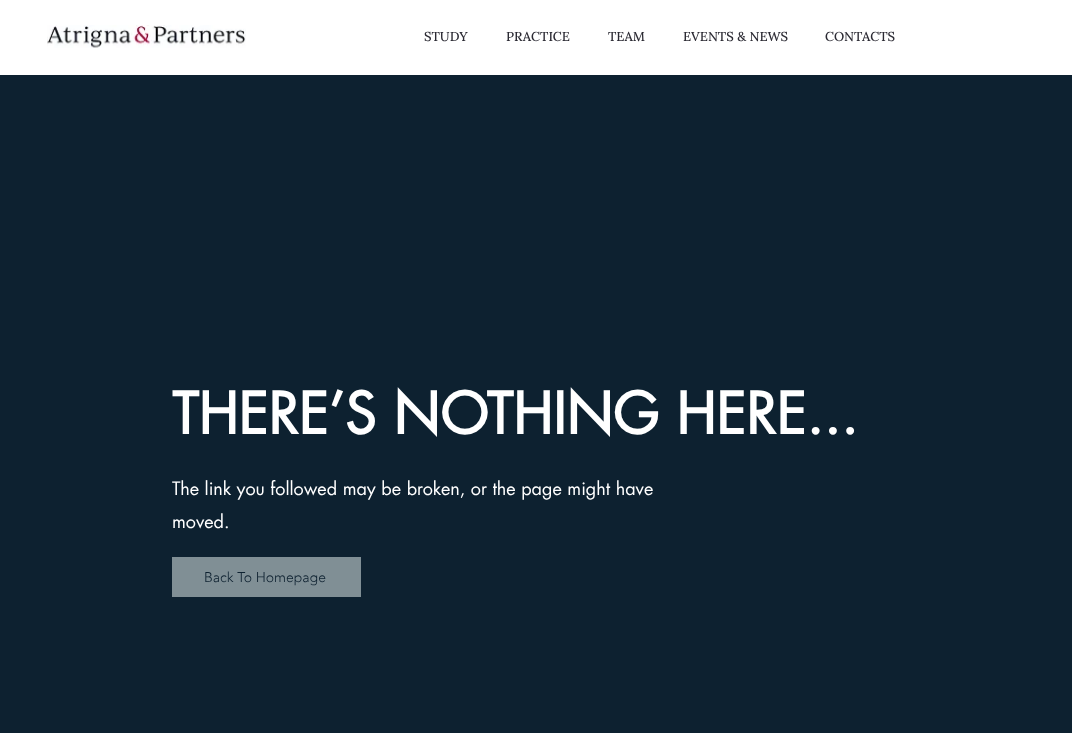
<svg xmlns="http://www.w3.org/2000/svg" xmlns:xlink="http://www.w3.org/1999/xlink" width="1072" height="733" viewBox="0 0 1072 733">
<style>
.cls-1{font:500 13px Lora;fill:#2b2a33}
.cls-2{font:bold 56px futura;fill:#ffffff}
.cls-3{font:18px futura;fill:#ffffff}
.cls-4{font:300 14px 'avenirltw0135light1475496';fill:#0d2130}
</style>
<rect width="100%" height="100%" fill="#0d2130"/>
<rect fill="#ffffff" x="0" y="0" width="1072" height="75"/>
<image xlink:href="image0.png" x="47" y="25" width="199" height="23"/>
<rect fill="#808f95" x="172" y="557" width="189" height="40"/>
<text class="cls-1" x="424" y="41">STUDY</text>
<text class="cls-1" x="506" y="41">PRACTICE</text>
<text class="cls-1" x="608" y="41">TEAM</text>
<text class="cls-1" x="683" y="41">EVENTS &amp; NEWS</text>
<text class="cls-1" x="825" y="41">CONTACTS</text>
<text class="cls-2" x="172" y="434">THERE’S NOTHING HERE...</text>
<text class="cls-3"><tspan x="172" y="495">The link you followed may be broken, or the page might have</tspan><tspan x="172" y="528">moved.</tspan></text>
<text class="cls-4" x="204" y="582">Back To Homepage</text>
</svg>
